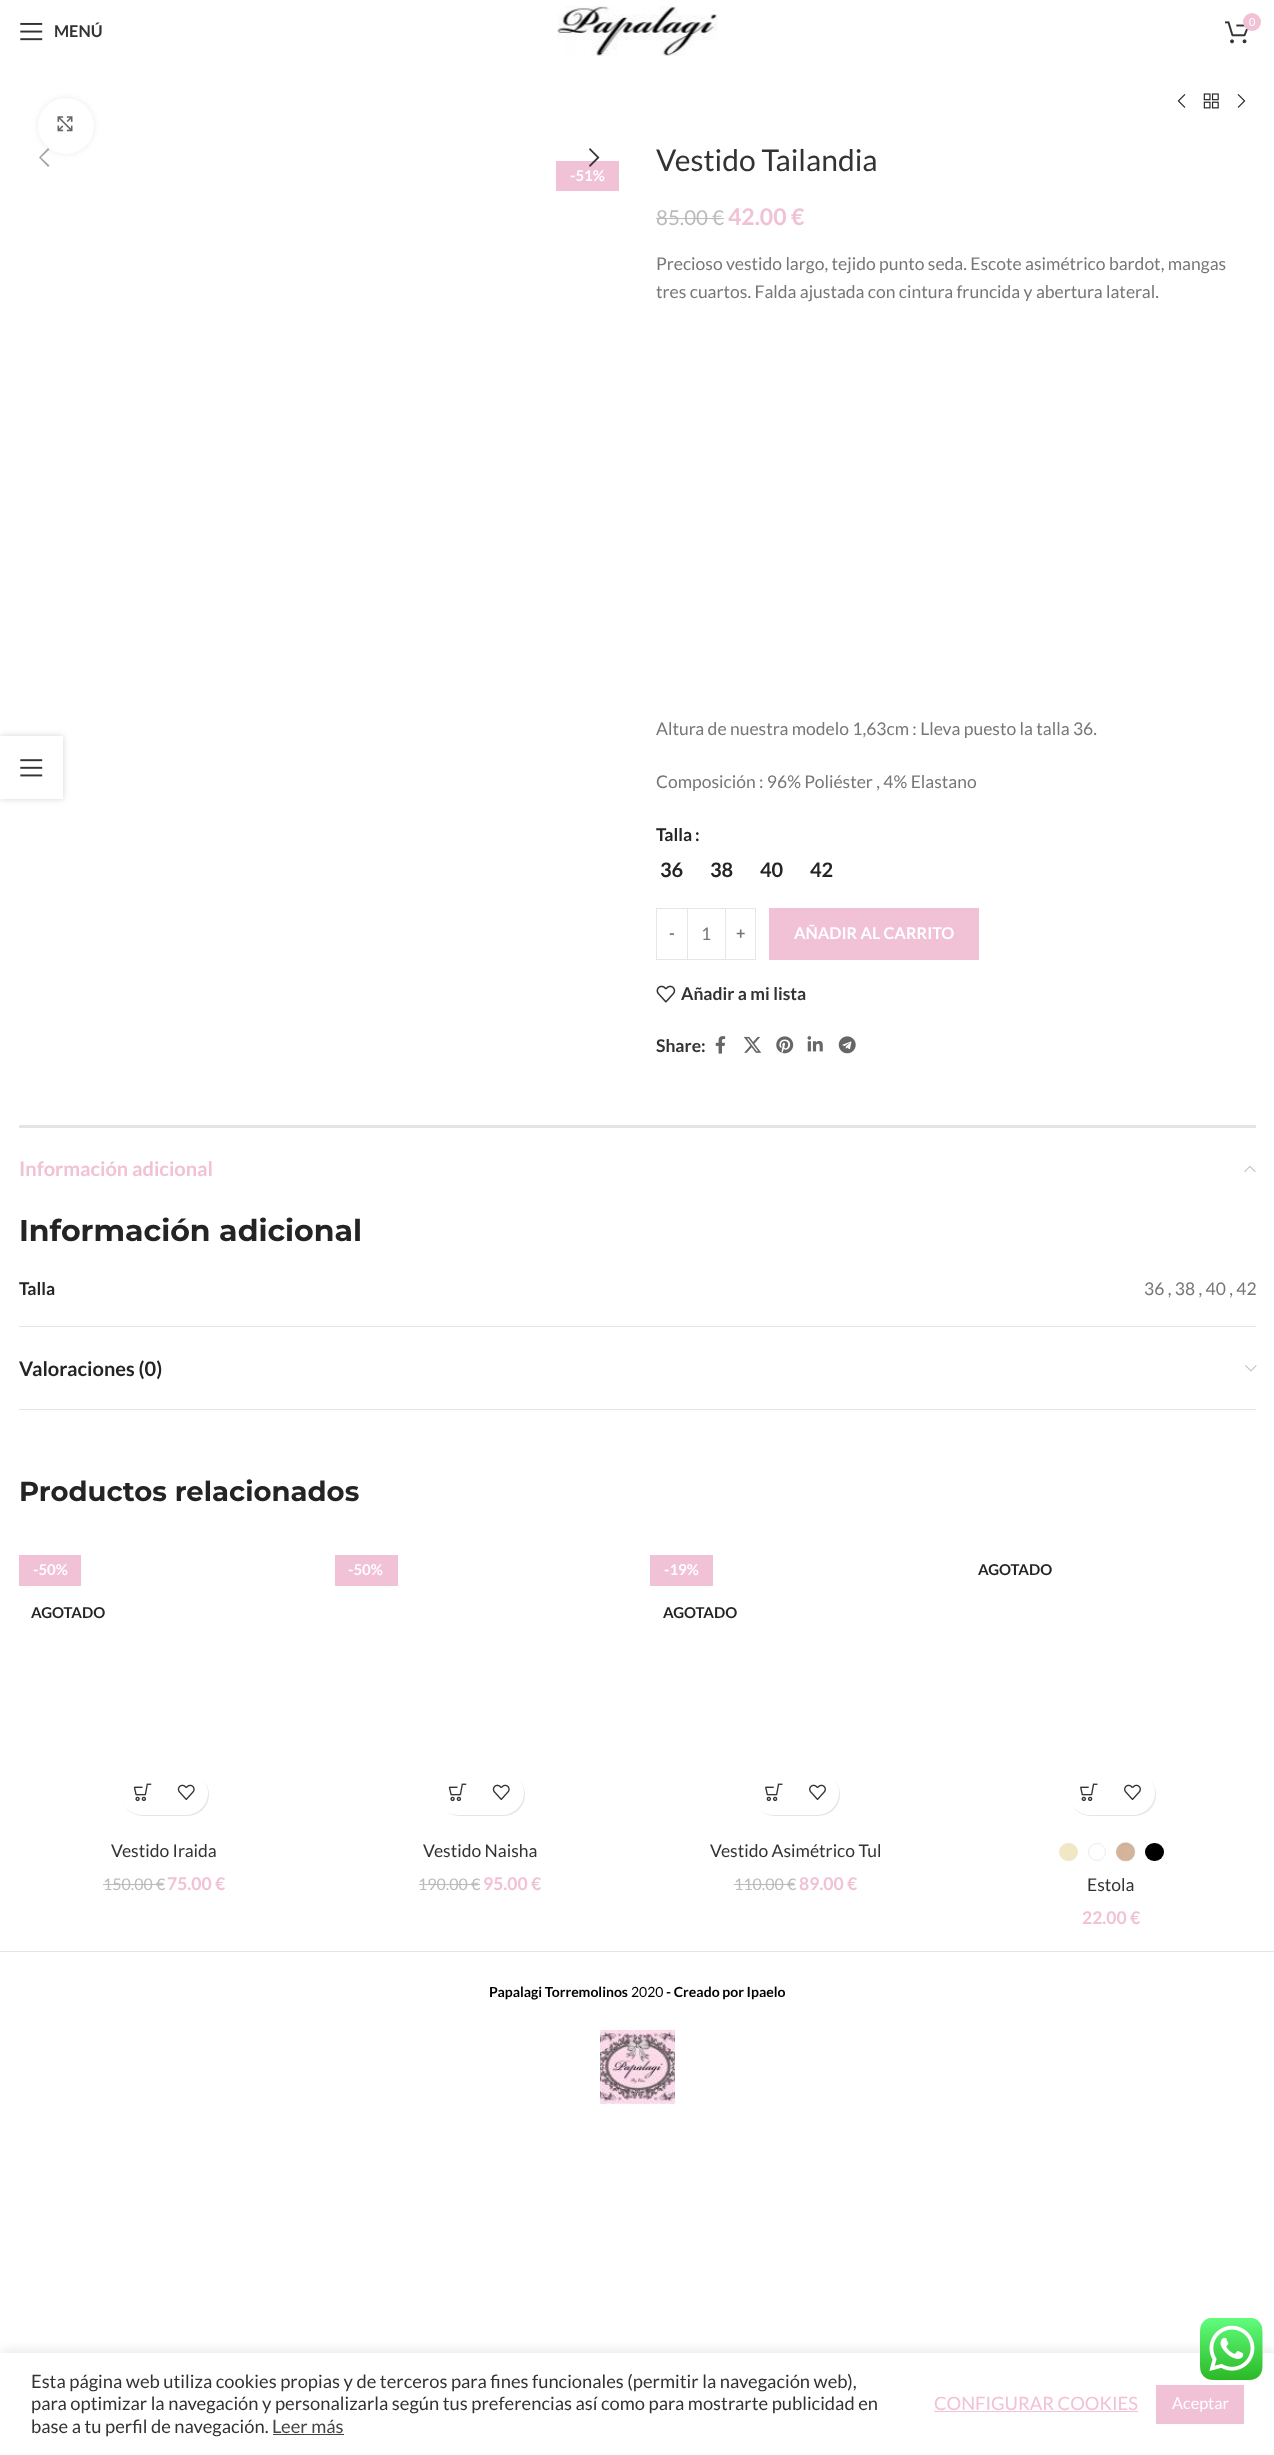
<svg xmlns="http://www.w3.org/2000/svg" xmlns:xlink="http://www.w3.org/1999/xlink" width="1274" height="2455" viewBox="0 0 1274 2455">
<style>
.cls-1{font:bold 16.25px Lato;fill:#333333}
.cls-2{font:11px Lato;fill:#ffffff}
.cls-3{font:bold 15px Lato;fill:#ffffff}
.cls-4{font:30px Lato;fill:#333333}
.cls-5{font:20.5px Lato;fill:#bbbbbb}
.cls-6{font:bold 23px Lato;fill:#f1c1d5}
.cls-7{font:17.5px Lato;fill:#777777}
.cls-8{font:bold 17.5px Lato;fill:#242424}
.cls-9{font:bold 20px Lato;fill:#242424}
.cls-10{font:bold 16.25px Lato;fill:#777777}
.cls-11{font:bold 16.25px Lato;fill:#ffffff}
.cls-12{font:bold 17.5px Lato;fill:#333333}
.cls-13{font:bold 20px Lato;fill:#f1c1d5}
.cls-14{font:bold 30px Montserrat;fill:#242424}
.cls-15{font:bold 27.5px Montserrat;fill:#242424}
.cls-16{font:bold 15px Lato;fill:#242424}
.cls-17{font:17.5px Lato;fill:#333333}
.cls-18{font:16px Lato;fill:#bbbbbb}
.cls-19{font:bold 17.5px Lato;fill:#f1c1d5}
.cls-20{font:bold 14px Lato;fill:#000000}
.cls-21{font:14px Lato;fill:#000000}
.cls-22{font:18.35px Lato;fill:#333333}
.cls-23{font:18.35px Lato;fill:#444444}
.cls-24{font:18.35px Lato;fill:#f1c1d5}
.cls-25{font:16.25px Lato;fill:#ffffff}
</style>
<defs>
<clipPath id="clip1"><path d="M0 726H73V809H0ZM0 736H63V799H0Z" clip-rule="evenodd"/></clipPath>
<clipPath id="clip2"><rect x="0" y="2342" width="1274" height="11"/></clipPath>
</defs>
<rect width="100%" height="100%" fill="#ffffff"/>
<image xlink:href="image0.png" x="20" y="22" width="23" height="19"/>
<image xlink:href="image1.png" x="557" y="6" width="161" height="50"/>
<image xlink:href="image2.png" x="1225" y="21" width="23" height="23"/>
<circle fill="#f1c1d5" cx="1252" cy="22" r="9"/>
<image xlink:href="image3.png" x="1177" y="94" width="9" height="14"/>
<image xlink:href="image4.png" x="1203" y="93" width="16" height="16"/>
<image xlink:href="image5.png" x="1237" y="94" width="9" height="14"/>
<rect fill="#000000" fill-opacity="0.08" filter="blur(3px)" x="38" y="98" width="56" height="56" rx="28"/>
<circle fill="#ffffff" cx="66" cy="126" r="28"/>
<image xlink:href="image6.png" x="57" y="116" width="16" height="16"/>
<path fill="#a5a5a5" d="M49.5 149.5L48 148L39 157.5L48 167L49.5 165.5L41 157.5Z"/>
<rect fill="#f1c1d5" x="556" y="161" width="63" height="30"/>
<path fill="#333333" d="M589 149.5L597 157.5L589 165.5L590 167L599.5 157.5L590 148Z"/>
<rect fill="#bbbbbb" x="656" y="218" width="57" height="1"/>
<rect fill="#bbbbbb" x="713" y="218" width="11" height="1"/>
<rect fill="none" stroke="#e6e6e6" x="656.5" y="908.5" width="31" height="51"/>
<rect fill="#e6e6e6" x="688" y="908" width="37" height="1"/>
<rect fill="#e6e6e6" x="688" y="959" width="37" height="1"/>
<rect fill="none" stroke="#e6e6e6" x="725.5" y="908.5" width="30" height="51"/>
<rect fill="#f1c1d5" x="769" y="908" width="210" height="52"/>
<image xlink:href="image7.png" x="656" y="985" width="20" height="18"/>
<image xlink:href="image8.png" x="715" y="1036" width="11" height="18"/>
<image xlink:href="image9.png" x="744" y="1036" width="18" height="17"/>
<image xlink:href="image10.png" x="776" y="1036" width="18" height="18"/>
<image xlink:href="image11.png" x="807" y="1036" width="16" height="16"/>
<image xlink:href="image12.png" x="838" y="1036" width="18" height="18"/>
<rect fill="#e4e4e4" x="19" y="1125" width="1237" height="3"/>
<rect fill="#e4e4e4" x="19" y="1326" width="1237" height="1"/>
<image xlink:href="image13.png" x="1244" y="1165" width="12" height="7"/>
<rect fill="#e4e4e4" x="19" y="1409" width="1237" height="1"/>
<image xlink:href="image14.png" x="1245" y="1365" width="12" height="7"/>
<rect fill="#f1c1d5" x="19" y="1555" width="62" height="31"/>
<rect fill="#000000" fill-opacity="0.1" filter="blur(0.5px)" x="121" y="1773" width="88" height="43" rx="21.5"/>
<rect fill="#ffffff" x="120" y="1771" width="88" height="44" rx="22"/>
<image xlink:href="image15.png" x="133" y="1783" width="19" height="19"/>
<image xlink:href="image16.png" x="177" y="1784" width="18" height="16"/>
<rect fill="#bbbbbb" x="103" y="1884" width="61" height="1"/>
<rect fill="#f1c1d5" x="335" y="1555" width="63" height="31"/>
<rect fill="#000000" fill-opacity="0.1" filter="blur(0.5px)" x="438" y="1773" width="87" height="43" rx="21.5"/>
<rect fill="#ffffff" x="436" y="1771" width="88" height="44" rx="22"/>
<image xlink:href="image15.png" x="448" y="1783" width="19" height="19"/>
<image xlink:href="image16.png" x="492" y="1784" width="18" height="16"/>
<rect fill="#bbbbbb" x="419" y="1884" width="61" height="1"/>
<rect fill="#f1c1d5" x="650" y="1555" width="63" height="31"/>
<rect fill="#000000" fill-opacity="0.1" filter="blur(0.5px)" x="753" y="1773" width="87" height="43" rx="21.5"/>
<rect fill="#ffffff" x="751" y="1771" width="88" height="44" rx="22"/>
<image xlink:href="image17.png" x="765" y="1783" width="18" height="19"/>
<image xlink:href="image18.png" x="809" y="1784" width="17" height="16"/>
<rect fill="#bbbbbb" x="734" y="1884" width="61" height="1"/>
<rect fill="#000000" fill-opacity="0.1" filter="blur(0.5px)" x="1069" y="1773" width="87" height="43" rx="21.5"/>
<rect fill="#ffffff" x="1068" y="1771" width="87" height="44" rx="22"/>
<image xlink:href="image17.png" x="1080" y="1783" width="18" height="19"/>
<image xlink:href="image18.png" x="1124" y="1784" width="17" height="16"/>
<rect fill="#f0e8c4" x="1059" y="1843" width="19" height="18" rx="9"/>
<circle fill="none" stroke="#ececec" cx="1097" cy="1852" r="8.5"/>
<image xlink:href="image19.png" x="1116" y="1842" width="20" height="20"/>
<rect fill="none" stroke="#000000" stroke-opacity="0.07" x="1116.5" y="1843.5" width="18" height="17" rx="8.5"/>
<rect fill="#000000" x="1145" y="1843" width="19" height="18" rx="9"/>
<rect fill="#e4e4e4" x="0" y="1951" width="1274" height="1"/>
<image xlink:href="image20.png" x="600" y="2030" width="75" height="74"/>
<g clip-path="url(#clip1)">
<rect fill="#000000" fill-opacity="0.17" filter="blur(3px)" x="0" y="736" width="63" height="63"/>
</g>
<rect fill="#ffffff" fill-opacity="0.9" x="0" y="736" width="63" height="63"/>
<image xlink:href="image21.png" x="20" y="759" width="23" height="18"/>
<g clip-path="url(#clip2)">
<rect fill="#acabab" fill-opacity="0.3" filter="blur(6px)" x="0" y="2351" width="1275" height="103"/>
</g>
<image xlink:href="image22.png" x="1200" y="2318" width="63" height="62"/>
<rect fill="#444444" x="273" y="2434" width="71" height="1"/>
<rect fill="#f1c1d5" x="934" y="2411" width="204" height="1"/>
<rect fill="#f1c1d5" x="1156" y="2385" width="88" height="39"/>
<text class="cls-1" x="54" y="37">MENÚ</text>
<text class="cls-2" x="1249" y="26">0</text>
<text class="cls-3" x="570" y="181">-51%</text>
<text class="cls-4" x="656" y="171">Vestido Tailandia</text>
<text class="cls-5" x="656" y="225">85.00</text>
<text class="cls-5" x="712" y="225">€</text>
<text class="cls-6" x="728" y="225">42.00 €</text>
<text class="cls-7"><tspan x="656" y="270">Precioso vestido largo, tejido punto seda. Escote asimétrico bardot, mangas</tspan><tspan x="656" y="298">tres cuartos. Falda ajustada con cintura fruncida y abertura lateral.</tspan></text>
<text class="cls-7" x="656" y="735">Altura de nuestra modelo 1,63cm : Lleva puesto la talla 36.</text>
<text class="cls-7" x="656" y="788">Composición : 96% Poliéster , 4% Elastano</text>
<text class="cls-8" x="656" y="841">Talla</text>
<text class="cls-8" x="695" y="841">:</text>
<text class="cls-9" x="660" y="877">36</text>
<text class="cls-9" x="710" y="877">38</text>
<text class="cls-9" x="760" y="877">40</text>
<text class="cls-9" x="810" y="877">42</text>
<text class="cls-10" x="669" y="939">-</text>
<text class="cls-7" x="701" y="940">1</text>
<text class="cls-10" x="736" y="939">+</text>
<text class="cls-11" x="794" y="939">AÑADIR AL CARRITO</text>
<text class="cls-12" x="681" y="1000">Añadir a mi lista</text>
<text class="cls-12" x="656" y="1052">Share:</text>
<text class="cls-13" x="19" y="1176">Información adicional</text>
<text class="cls-14" x="19" y="1241">Información adicional</text>
<text class="cls-8" x="19" y="1295">Talla</text>
<text class="cls-7" x="1144" y="1295">36 , 38 , 40 , 42</text>
<text class="cls-9" x="19" y="1376">Valoraciones (0)</text>
<text class="cls-15" x="19" y="1501">Productos relacionados</text>
<text class="cls-3" x="33" y="1575">-50%</text>
<text class="cls-16" x="31" y="1618">AGOTADO</text>
<text class="cls-17" x="111" y="1857">Vestido Iraida</text>
<text class="cls-18" x="103" y="1890">150.00 €</text>
<text class="cls-19" x="167" y="1890">75.00 €</text>
<text class="cls-3" x="348" y="1575">-50%</text>
<text class="cls-17" x="423" y="1857">Vestido Naisha</text>
<text class="cls-18" x="418" y="1890">190.00 €</text>
<text class="cls-19" x="483" y="1890">95.00 €</text>
<text class="cls-3" x="664" y="1575">-19%</text>
<text class="cls-16" x="663" y="1618">AGOTADO</text>
<text class="cls-17" x="710" y="1857">Vestido Asimétrico Tul</text>
<text class="cls-18" x="734" y="1890">110.00 €</text>
<text class="cls-19" x="799" y="1890">89.00 €</text>
<text class="cls-16" x="978" y="1575">AGOTADO</text>
<text class="cls-17" x="1087" y="1891">Estola</text>
<text class="cls-19" x="1082" y="1924">22.00 €</text>
<text class="cls-20" x="489" y="1997">Papalagi Torremolinos</text>
<text class="cls-21" x="631" y="1997">2020</text>
<text class="cls-20" x="666" y="1997">- Creado por Ipaelo</text>
<text class="cls-22"><tspan x="31" y="2388">Esta página web utiliza cookies propias y de terceros para fines funcionales (permitir la navegación web),</tspan><tspan x="31" y="2410">para optimizar la navegación y personalizarla según tus preferencias así como para mostrarte publicidad en</tspan><tspan x="31" y="2433">base a tu perfil de navegación.</tspan></text>
<text class="cls-23" x="272" y="2433">Leer más</text>
<text class="cls-24" x="934" y="2410">CONFIGURAR COOKIES</text>
<text class="cls-25" x="1172" y="2409">Aceptar</text>
</svg>
